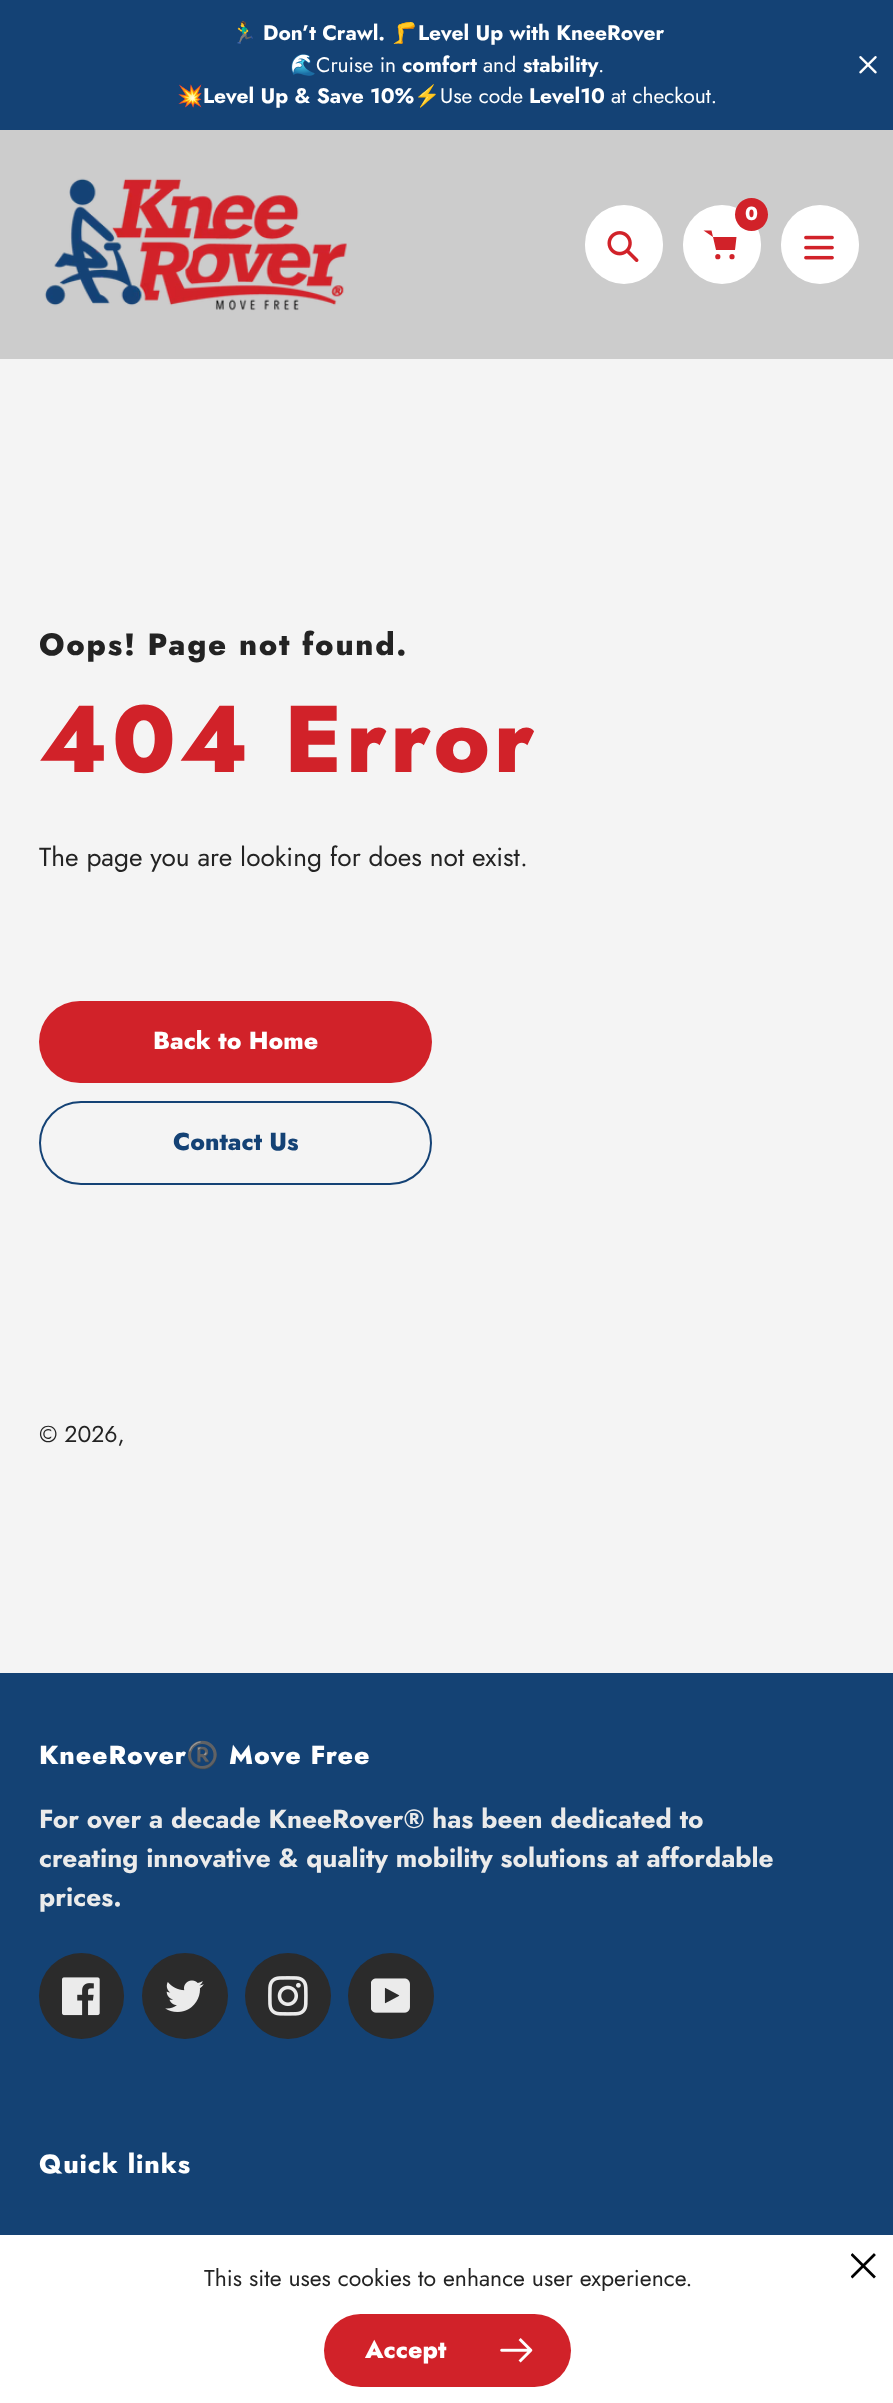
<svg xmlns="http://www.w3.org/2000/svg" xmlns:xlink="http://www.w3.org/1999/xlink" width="893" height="2403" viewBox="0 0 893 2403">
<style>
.cls-1{font:21px Noto Color Emoji;fill:#ffffff}
.cls-2{font:bold 21px Jost;fill:#ffffff}
.cls-3{font:21px Jost;fill:#ffffff}
.cls-4{font:800 19px Jost;fill:#ffffff}
.cls-5{font:800 30.75px Jost;letter-spacing:1.75px;fill:#232323}
.cls-6{font:800 94.5px Jost;letter-spacing:3.5px;fill:#d12229}
.cls-7{font:26.25px Jost;fill:#232323}
.cls-8{font:800 24.5px Jost;fill:#ffffff}
.cls-9{font:800 24.5px Jost;fill:#144275}
.cls-10{font:23px Jost;fill:#232323}
.cls-11{font:800 26.25px Jost;letter-spacing:0.9px;fill:#ffffff}
.cls-12{font:bold 26.25px Noto Color Emoji;letter-spacing:0.9px;fill:#ffffff}
.cls-13{font:bold 26.25px Jost;fill:#ebebeb}
</style>
<rect width="100%" height="100%" fill="#f4f4f4"/>
<rect fill="#144275" x="0" y="0" width="893" height="130"/>
<image xlink:href="image0.png" x="859" y="56" width="18" height="18"/>
<rect fill="#cccccc" x="0" y="130" width="893" height="229"/>
<image xlink:href="image1.png" x="44" y="178" width="303" height="133"/>
<rect fill="#ffffff" x="585" y="205" width="78" height="79" rx="39"/>
<image xlink:href="image2.png" x="607" y="231" width="32" height="31"/>
<rect fill="#ffffff" x="683" y="205" width="78" height="79" rx="39"/>
<path fill="#d12229" fill-rule="evenodd" d="M713 237H736.5L735 250H716L711.5 230.5H703.5"/>
<circle fill="#d12229" cx="751.5" cy="214.5" r="16.5"/>
<circle fill="#d12229" cx="717.8" cy="256.7" r="2.6"/>
<circle fill="#d12229" cx="732" cy="256.7" r="2.6"/>
<rect fill="#ffffff" x="781" y="205" width="78" height="79" rx="39"/>
<image xlink:href="image3.png" x="804" y="235" width="30" height="25"/>
<rect fill="#d12229" x="39" y="1001" width="393" height="82" rx="41"/>
<rect fill="none" stroke="#144275" stroke-width="2" x="40" y="1102" width="391" height="82" rx="41"/>
<rect fill="#144274" x="0" y="1673" width="893" height="562"/>
<rect fill="#2b2b2b" x="39" y="1953" width="85" height="86" rx="42.5"/>
<image xlink:href="image4.png" x="62" y="1977" width="38" height="39"/>
<circle fill="#2b2b2b" cx="185" cy="1996" r="43"/>
<image xlink:href="image5.png" x="165" y="1980" width="39" height="32"/>
<circle fill="#2b2b2b" cx="288" cy="1996" r="43"/>
<image xlink:href="image6.png" x="268" y="1976" width="40" height="40"/>
<circle fill="#2b2b2b" cx="391" cy="1996" r="43"/>
<image xlink:href="image7.png" x="371" y="1978" width="39" height="35"/>
<rect fill="#ffffff" x="0" y="2235" width="893" height="168"/>
<image xlink:href="image8.png" x="851" y="2253" width="25" height="26"/>
<rect fill="#d12229" x="324" y="2314" width="247" height="73" rx="36.5"/>
<image xlink:href="image9.png" x="500" y="2338" width="33" height="25"/>
<text class="cls-1" x="231" y="40">🏃‍♂️</text>
<text class="cls-2" x="263" y="40">Don’t Crawl.</text>
<text class="cls-1" x="391" y="40">🦵</text>
<text class="cls-2" x="418" y="40">Level Up with KneeRover</text>
<text class="cls-1" x="290" y="72">🌊</text>
<text class="cls-3" x="316" y="72">Cruise in</text>
<text class="cls-2" x="402" y="72">comfort</text>
<text class="cls-3" x="483" y="72">and</text>
<text class="cls-2" x="523" y="72">stability</text>
<text class="cls-3" x="598" y="72">.</text>
<text class="cls-1" x="177" y="103">💥</text>
<text class="cls-2" x="203" y="103">Level Up &amp; Save 10%</text>
<text class="cls-1" x="414" y="103">⚡</text>
<text class="cls-3" x="440" y="103">Use code</text>
<text class="cls-2" x="529" y="103">Level10</text>
<text class="cls-3" x="611" y="103">at checkout.</text>
<text class="cls-4" x="745" y="220">0</text>
<text class="cls-5" x="39" y="655">Oops! Page not found.</text>
<text class="cls-6" x="39" y="772">404 Error</text>
<text class="cls-7" x="39" y="866">The page you are looking for does not exist.</text>
<text class="cls-8" x="153" y="1049">Back to Home</text>
<text class="cls-9" x="173" y="1150">Contact Us</text>
<text class="cls-10" x="39" y="1442">© 2026,</text>
<text class="cls-11" x="39" y="1764">KneeRover</text>
<text class="cls-12" x="186" y="1764">®️</text>
<text class="cls-11" x="229" y="1764">Move Free</text>
<text class="cls-13"><tspan x="39" y="1828">For over a decade KneeRover® has been dedicated to</tspan><tspan x="39" y="1867">creating innovative &amp; quality mobility solutions at affordable</tspan><tspan x="39" y="1906">prices.</tspan></text>
<text class="cls-11" x="39" y="2173">Quick links</text>
<text class="cls-10" x="204" y="2286">This site uses cookies to enhance user experience.</text>
<text class="cls-8" x="365" y="2358">Accept</text>
</svg>
